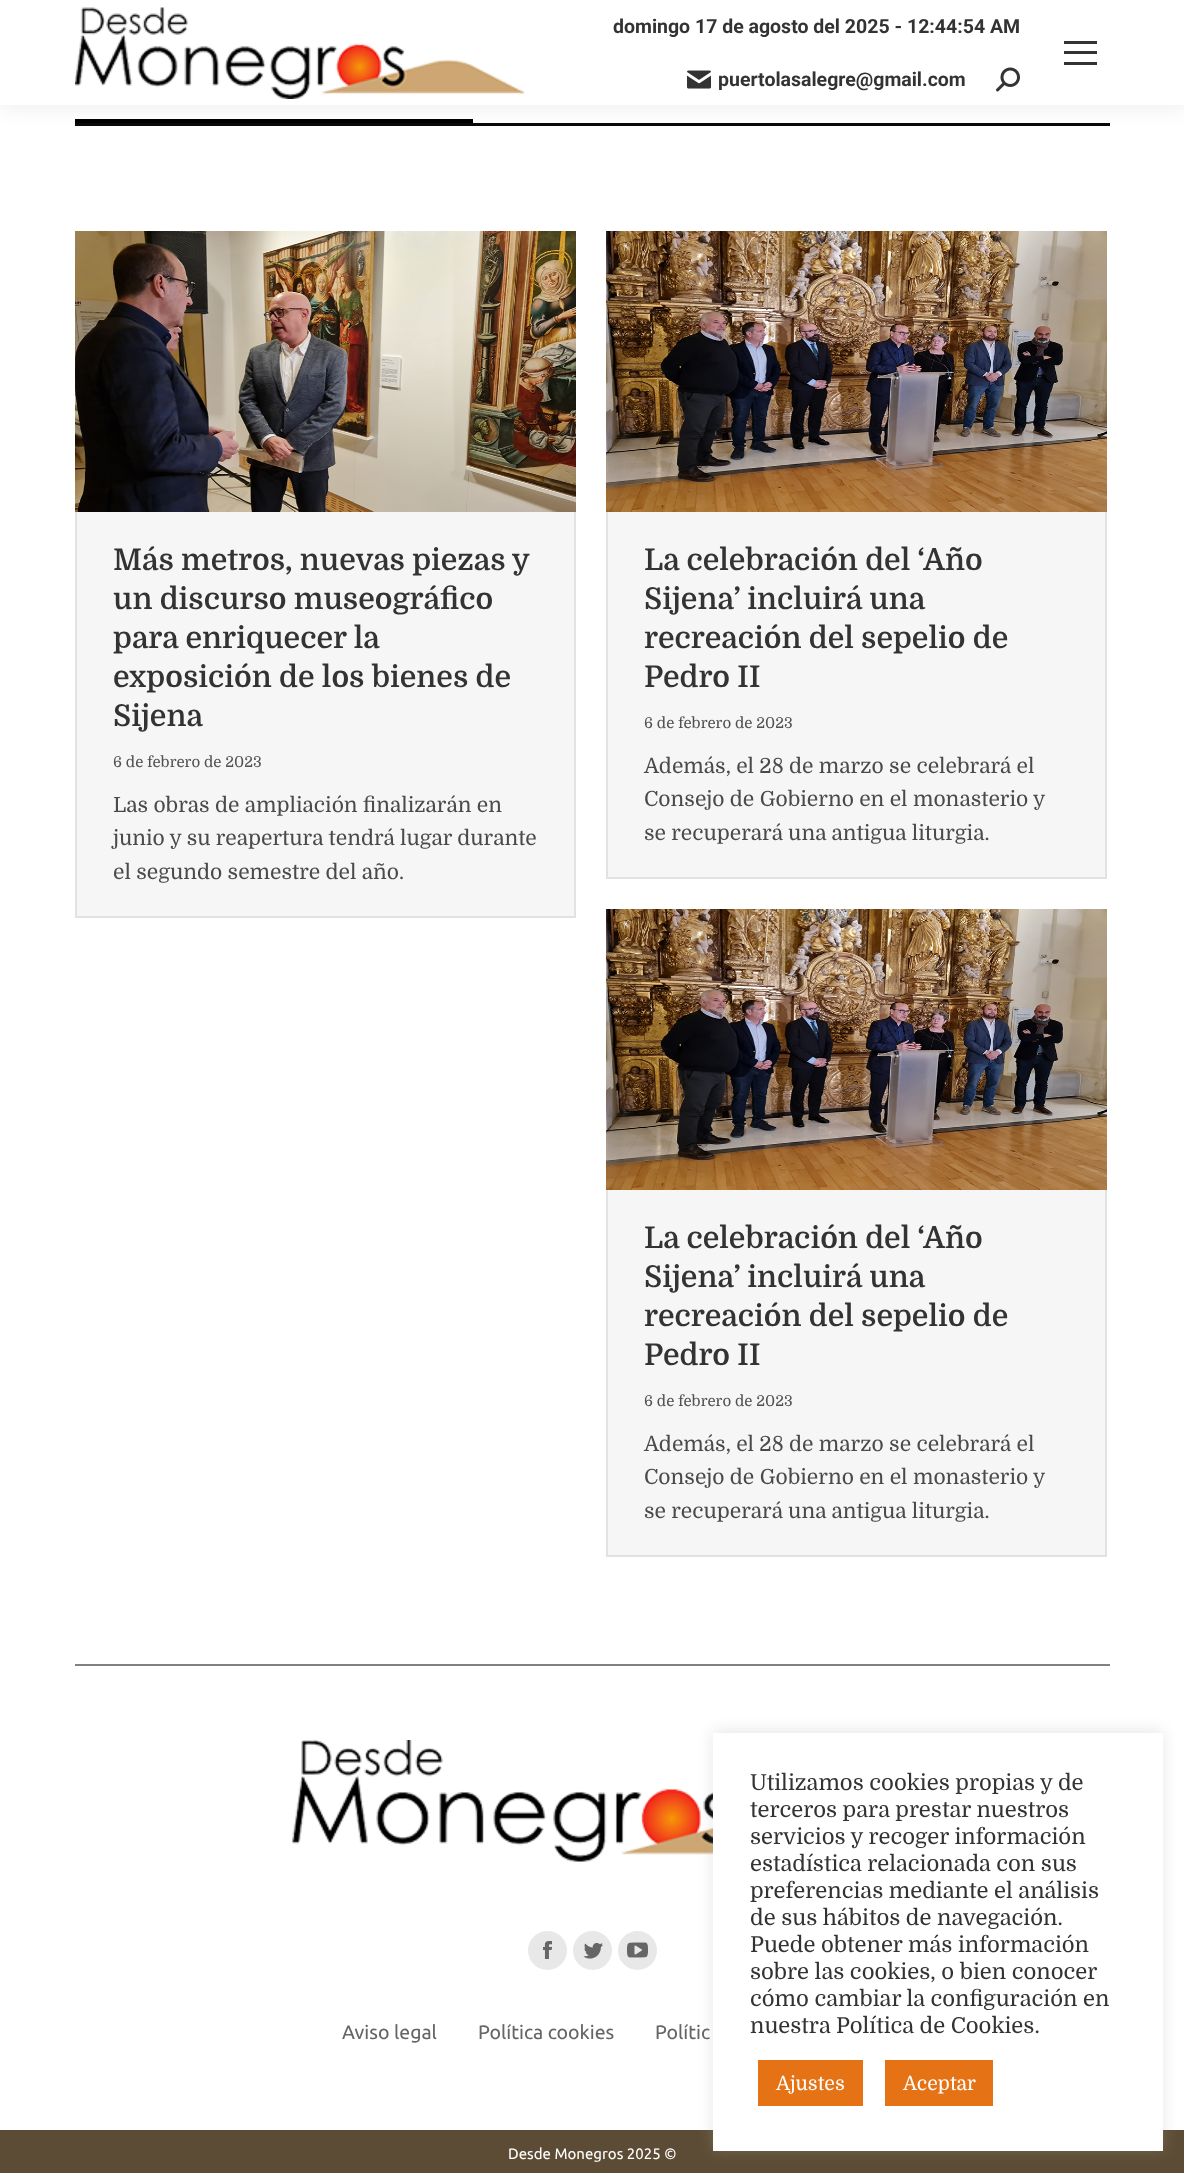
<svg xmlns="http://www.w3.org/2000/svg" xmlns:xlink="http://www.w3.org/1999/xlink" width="1184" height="2173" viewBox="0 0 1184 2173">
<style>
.cls-1{font:bold 19.5px Roboto;fill:#333333}
.cls-2{font:600 30px Domine;fill:#333333}
.cls-3{font:15px Domine;fill:#515151}
.cls-4{font:21px Domine;fill:#4a4a4a}
.cls-5{font:19.5px Ubuntu;fill:#666666}
.cls-6{font:15px Ubuntu;fill:#ffffff}
.cls-7{font:22px Domine;fill:#333333}
.cls-8{font:19.5px Domine;fill:#ffffff}
</style>
<rect width="100%" height="100%" fill="#ffffff"/>
<rect fill="#000000" x="75" y="119" width="398" height="4"/>
<rect fill="#0a0a0a" x="75" y="123" width="1035" height="3"/>
<rect fill="#000000" fill-opacity="0.07" filter="blur(11px)" x="-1" y="-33" width="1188" height="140"/>
<rect fill="#ffffff" x="0" y="0" width="1184" height="105"/>
<image xlink:href="image0.png" x="75" y="7" width="450" height="92"/>
<image xlink:href="image1.png" x="687" y="70" width="24" height="19"/>
<image xlink:href="image2.png" x="996" y="67" width="24" height="25"/>
<rect fill="#333333" x="1064" y="41" width="33" height="3"/>
<rect fill="#333333" x="1064" y="51" width="33" height="3"/>
<rect fill="#333333" x="1064" y="62" width="33" height="3"/>
<rect fill="#f6f6f6" x="77" y="512" width="497" height="404"/>
<rect fill="none" stroke="#e2e2e2" stroke-width="2" x="76" y="232" width="499" height="685"/>
<image xlink:href="image3.png" x="75" y="231" width="501" height="281"/>
<rect fill="#f6f6f6" x="608" y="512" width="497" height="365"/>
<rect fill="none" stroke="#e2e2e2" stroke-width="2" x="607" y="232" width="499" height="646"/>
<image xlink:href="image4.png" x="606" y="231" width="501" height="281"/>
<rect fill="#f6f6f6" x="608" y="1190" width="497" height="365"/>
<rect fill="none" stroke="#e2e2e2" stroke-width="2" x="607" y="910" width="499" height="646"/>
<image xlink:href="image5.png" x="606" y="909" width="501" height="281"/>
<rect fill="#858080" x="75" y="1664" width="1035" height="2"/>
<image xlink:href="image6.png" x="292" y="1740" width="421" height="122"/>
<circle fill="#e8e8e8" cx="547.5" cy="1950.5" r="19.5"/>
<image xlink:href="image7.png" x="543" y="1941" width="9" height="18"/>
<circle fill="#e8e8e8" cx="592.5" cy="1950.5" r="19.5"/>
<image xlink:href="image8.png" x="583" y="1942" width="20" height="17"/>
<circle fill="#e8e8e8" cx="637.5" cy="1950.5" r="19.5"/>
<image xlink:href="image9.png" x="627" y="1942" width="21" height="16"/>
<rect fill="#5d4c35" x="0" y="2130" width="1184" height="43"/>
<rect fill="#acabab" fill-opacity="0.3" filter="blur(7.5px)" x="713" y="1731" width="450" height="419"/>
<rect fill="#ffffff" x="713" y="1733" width="450" height="418"/>
<rect fill="#e57316" x="758" y="2060" width="105" height="46"/>
<rect fill="#e57316" x="885" y="2060" width="108" height="46"/>
<text class="cls-1" x="613" y="33">domingo 17 de agosto del 2025 - 12:44:54 AM</text>
<text class="cls-1" x="718" y="86">puertolasalegre@gmail.com</text>
<text class="cls-2"><tspan x="113" y="570">Más metros, nuevas piezas y</tspan><tspan x="113" y="609">un discurso museográfico</tspan><tspan x="113" y="648">para enriquecer la</tspan><tspan x="113" y="687">exposición de los bienes de</tspan><tspan x="113" y="726">Sijena</tspan></text>
<text class="cls-3" x="113" y="767">6 de febrero de 2023</text>
<text class="cls-4"><tspan x="113" y="812">Las obras de ampliación finalizarán en</tspan><tspan x="113" y="845">junio y su reapertura tendrá lugar durante</tspan><tspan x="113" y="879">el segundo semestre del año.</tspan></text>
<text class="cls-2"><tspan x="644" y="570">La celebración del ‘Año</tspan><tspan x="644" y="609">Sijena’ incluirá una</tspan><tspan x="644" y="648">recreación del sepelio de</tspan><tspan x="644" y="687">Pedro II</tspan></text>
<text class="cls-3" x="644" y="728">6 de febrero de 2023</text>
<text class="cls-4"><tspan x="644" y="773">Además, el 28 de marzo se celebrará el</tspan><tspan x="644" y="806">Consejo de Gobierno en el monasterio y</tspan><tspan x="644" y="840">se recuperará una antigua liturgia.</tspan></text>
<text class="cls-2"><tspan x="644" y="1248">La celebración del ‘Año</tspan><tspan x="644" y="1287">Sijena’ incluirá una</tspan><tspan x="644" y="1326">recreación del sepelio de</tspan><tspan x="644" y="1365">Pedro II</tspan></text>
<text class="cls-3" x="644" y="1406">6 de febrero de 2023</text>
<text class="cls-4"><tspan x="644" y="1451">Además, el 28 de marzo se celebrará el</tspan><tspan x="644" y="1484">Consejo de Gobierno en el monasterio y</tspan><tspan x="644" y="1518">se recuperará una antigua liturgia.</tspan></text>
<text class="cls-5" x="342" y="2039">Aviso legal</text>
<text class="cls-5" x="478" y="2039">Política cookies</text>
<text class="cls-5" x="655" y="2039">Polític</text>
<text class="cls-6" x="508" y="2159">Desde Monegros 2025 ©</text>
<text class="cls-7"><tspan x="750" y="1790">Utilizamos cookies propias y de</tspan><tspan x="750" y="1817">terceros para prestar nuestros</tspan><tspan x="750" y="1844">servicios y recoger información</tspan><tspan x="750" y="1871">estadística relacionada con sus</tspan><tspan x="750" y="1898">preferencias mediante el análisis</tspan><tspan x="750" y="1925">de sus hábitos de navegación.</tspan><tspan x="750" y="1952">Puede obtener más información</tspan><tspan x="750" y="1979">sobre las cookies, o bien conocer</tspan><tspan x="750" y="2006">cómo cambiar la configuración en</tspan><tspan x="750" y="2033">nuestra Política de Cookies.</tspan></text>
<text class="cls-8" x="776" y="2090">Ajustes</text>
<text class="cls-8" x="903" y="2090">Aceptar</text>
</svg>
